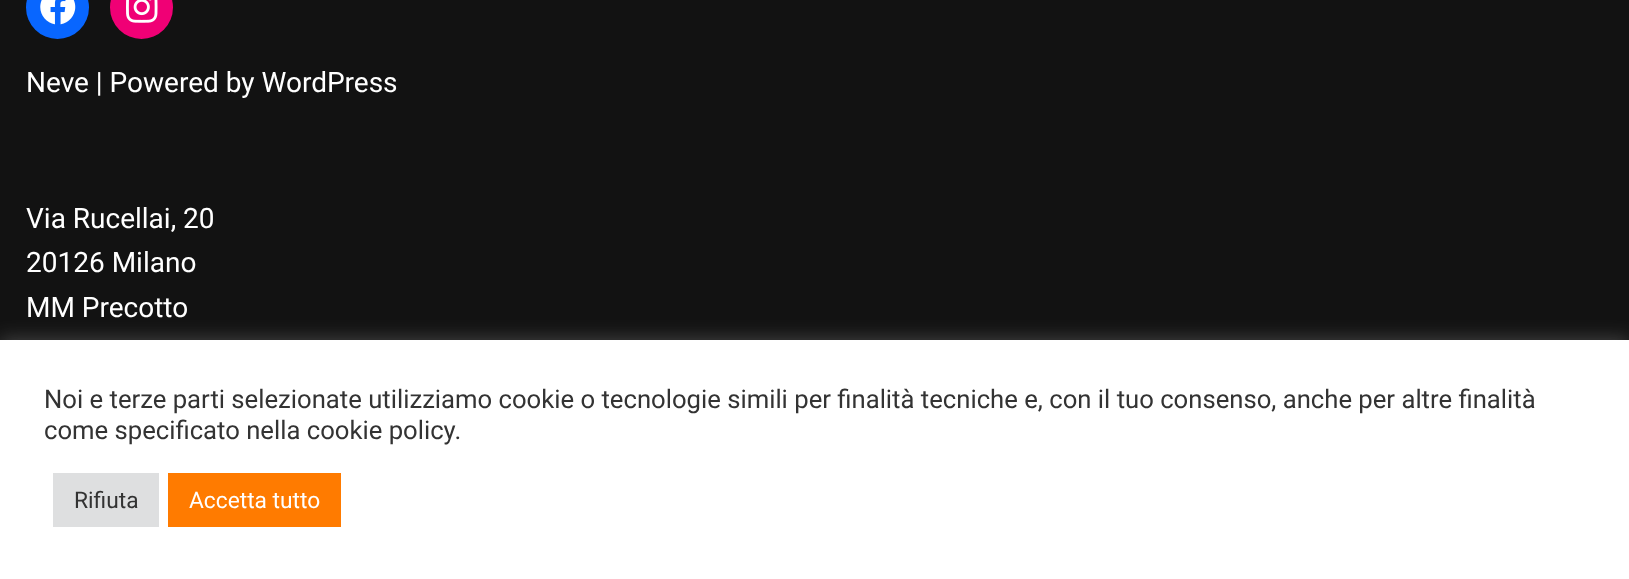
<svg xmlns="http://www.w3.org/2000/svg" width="1629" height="579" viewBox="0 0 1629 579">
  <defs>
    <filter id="blur1" x="-50%" y="-200%" width="200%" height="500%"><feGaussianBlur stdDeviation="9"/></filter>
  </defs>
  <rect width="100%" height="100%" fill="#121212"/>
  <circle cx="57.5" cy="7.5" r="31.5" fill="#0866ff"/>
  <image x="40" y="0" width="36" height="25" href="img1.png"/>
  <circle cx="141.5" cy="7.5" r="31.5" fill="#f00075"/>
  <image x="126" y="0" width="32" height="23" href="img2.png"/>
  <text x="26" y="92" font-family="Roboto" font-size="28" fill="#ffffff">Neve | Powered by WordPress</text>
  <text x="26" y="228" font-family="Roboto" font-size="28" fill="#ffffff">Via Rucellai, 20</text>
  <text x="26" y="272" font-family="Roboto" font-size="28" fill="#ffffff">20126 Milano</text>
  <text x="26" y="317" font-family="Roboto" font-size="28" fill="#ffffff">MM Precotto</text>
  <rect x="0" y="338" width="1629" height="240" fill="#acabab" fill-opacity="0.3" filter="url(#blur1)"/>
  <rect x="0" y="340" width="1629" height="239" fill="#ffffff"/>
  <text x="44" y="408" font-family="Roboto" font-size="25.67" fill="#333333">Noi e terze parti selezionate utilizziamo cookie o tecnologie simili per finalità tecniche e, con il tuo consenso, anche per altre finalità</text>
  <text x="44" y="439" font-family="Roboto" font-size="25.67" fill="#333333">come specificato nella cookie policy.</text>
  <rect x="53" y="473" width="106" height="54" fill="#dedfe0"/>
  <text x="74" y="508" font-family="Roboto" font-size="22.75" fill="#333333">Rifiuta</text>
  <rect x="168" y="473" width="173" height="54" fill="#ff7b00"/>
  <text x="189" y="508" font-family="Roboto" font-size="22.75" fill="#ffffff">Accetta tutto</text>
</svg>
